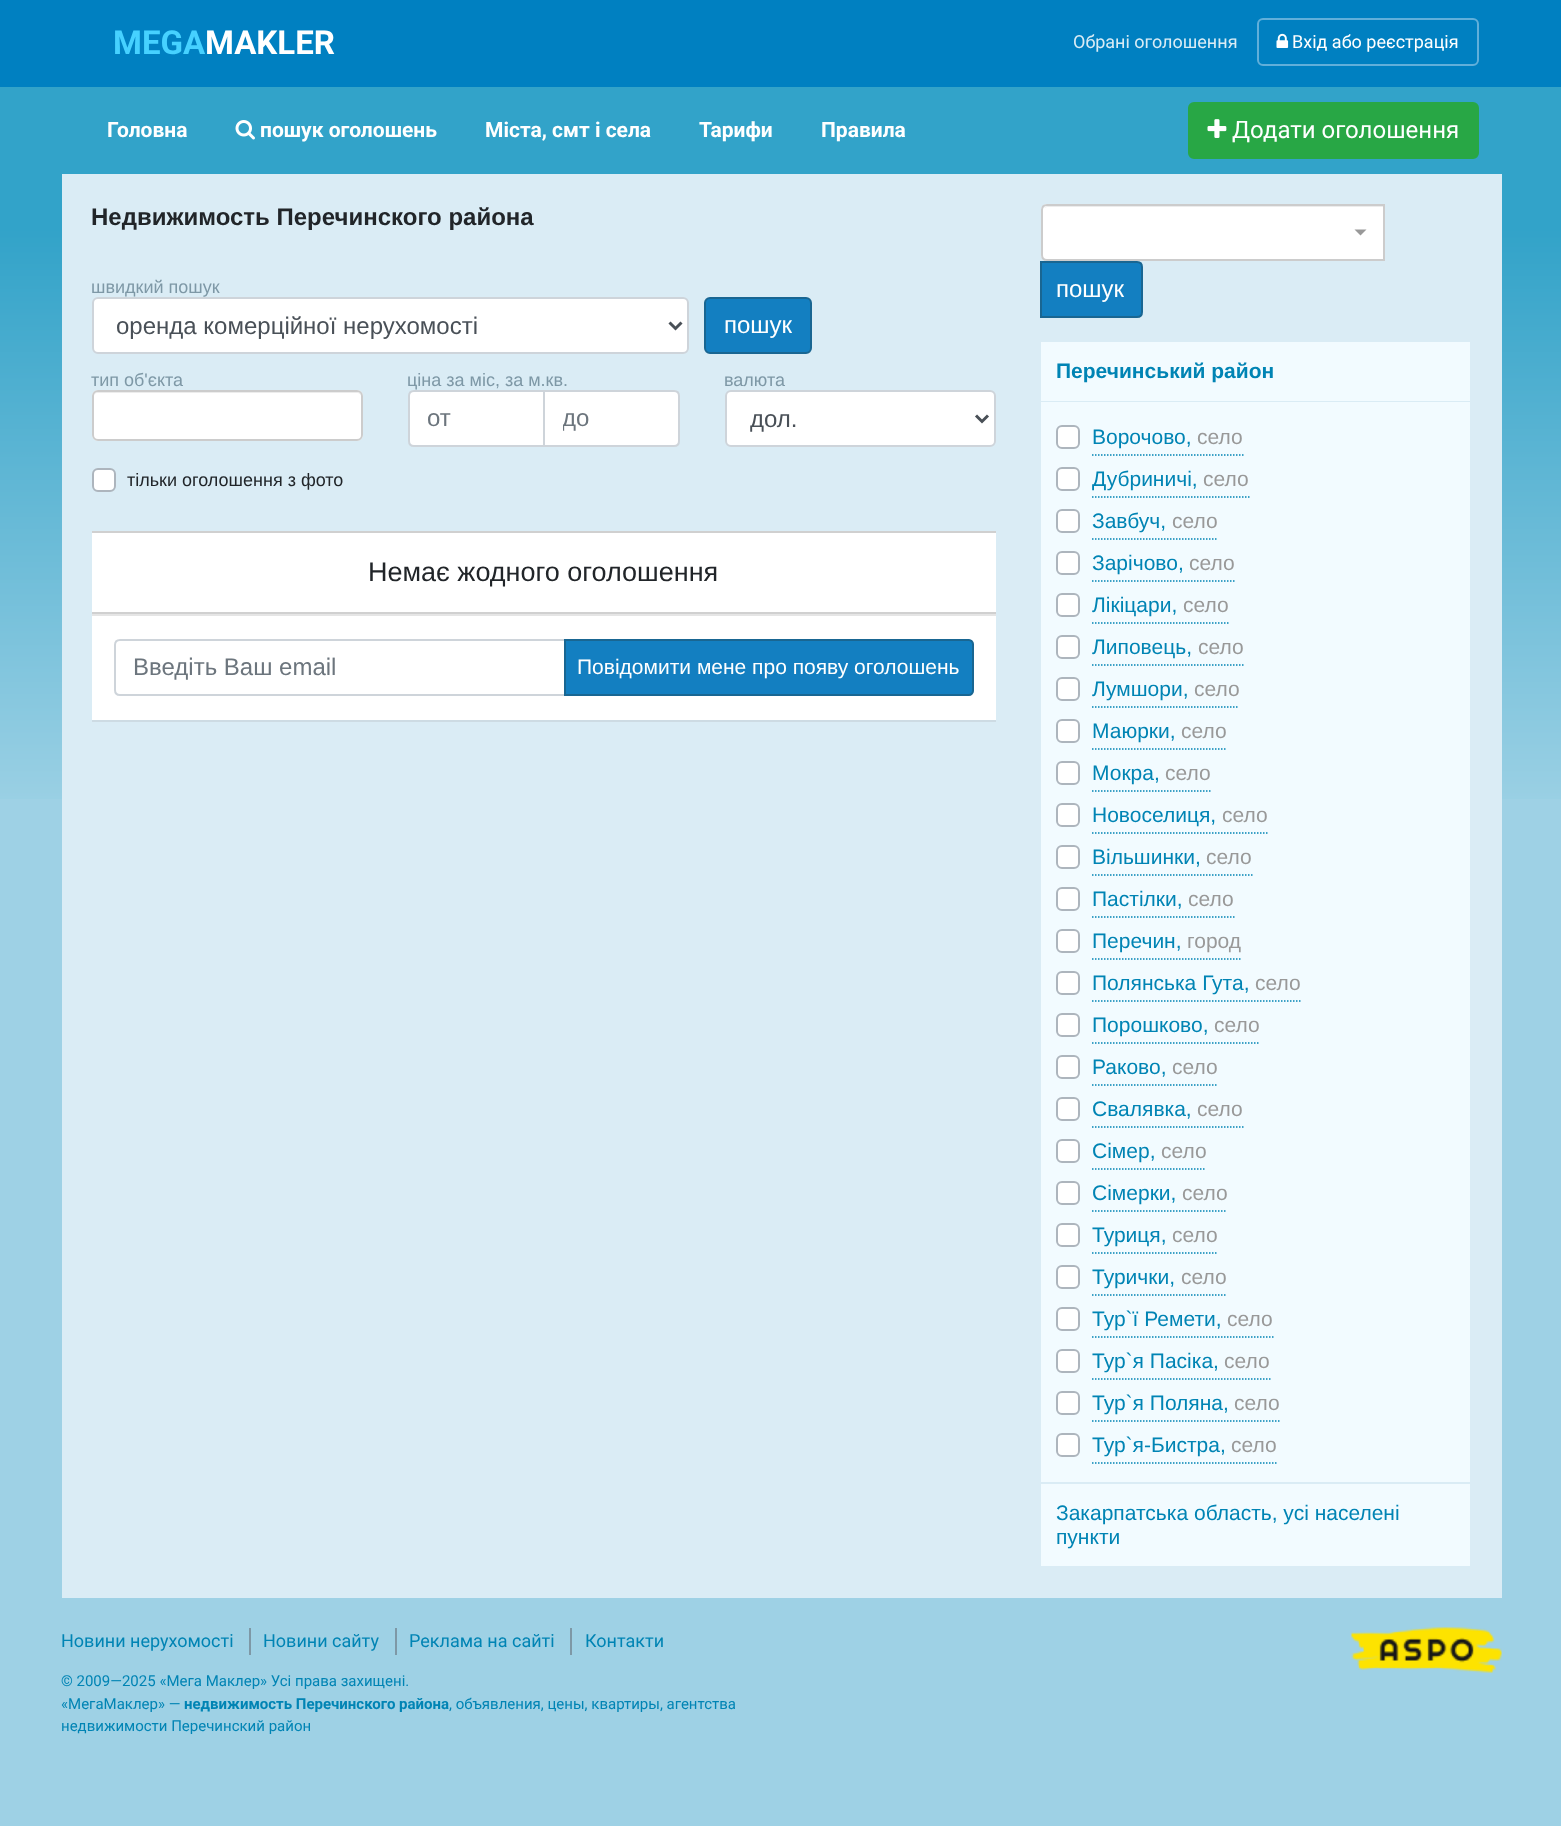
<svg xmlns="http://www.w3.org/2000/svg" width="1561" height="1826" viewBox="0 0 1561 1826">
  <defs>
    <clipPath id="clip1"><rect x="563" y="405" width="97" height="27"/></clipPath>
    <clipPath id="clip2"><rect x="750" y="405" width="203" height="29"/></clipPath>
  </defs>
  <rect width="100%" height="100%" fill="#9ed1e5"/>
  <image x="0" y="87" width="1561" height="712" href="img1.png"/>
  <rect x="0" y="0" width="1561" height="87" fill="#0080c1"/>
  <text x="113" y="54" font-family="Roboto" font-size="33" font-weight="bold" fill="#46d1ff">MEGA</text>
  <text x="205" y="54" font-family="Roboto" font-size="33" font-weight="bold" fill="#ffffff">MAKLER</text>
  <text x="1073" y="48" font-family="Roboto" font-size="18" fill="#daecf5">Обрані оголошення</text>
  <rect x="1258" y="19" width="220" height="46" rx="5" fill="none" stroke="#61afda" stroke-width="2"/>
  <image x="1276" y="33" width="13" height="15" href="img2.png"/>
  <text x="1292" y="48" font-family="Roboto" font-size="18" fill="#ffffff">Вхід або реєстрація</text>
  <text x="107" y="137" font-family="Roboto" font-size="21" font-weight="bold" fill="#ffffff">Головна</text>
  <image x="235" y="120" width="20" height="20" href="img3.png"/>
  <text x="260" y="137" font-family="Roboto" font-size="21" font-weight="bold" fill="#ffffff">пошук оголошень</text>
  <text x="485" y="137" font-family="Roboto" font-size="21" font-weight="bold" fill="#ffffff">Міста, смт і села</text>
  <text x="699" y="137" font-family="Roboto" font-size="21" font-weight="bold" fill="#ffffff">Тарифи</text>
  <text x="821" y="137" font-family="Roboto" font-size="21" font-weight="bold" fill="#ffffff">Правила</text>
  <rect x="1189" y="103" width="289" height="55" rx="5" fill="#28a745" stroke="#28a745" stroke-width="2"/>
  <image x="1207" y="119" width="20" height="19" href="img4.png"/>
  <text x="1232" y="138" font-family="Roboto" font-size="24" fill="#ffffff">Додати оголошення</text>
  <rect x="62" y="174" width="1440" height="1424" fill="#daecf5"/>
  <text x="91" y="225" font-family="Liberation Sans" font-size="24" font-weight="bold" fill="#212529">Недвижимость Перечинского района</text>
  <text x="91" y="293" font-family="Liberation Sans" font-size="18" fill="#7e98a6">швидкий пошук</text>
  <rect x="93" y="298" width="595" height="55" rx="5" fill="#ffffff" stroke="#ced4da" stroke-width="2"/>
  <path d="M669.5 322.5L675.5 328.5L681.5 322.5" fill="none" stroke="#495057" stroke-width="3"/>
  <text x="116" y="334" font-family="Liberation Sans" font-size="24" fill="#495057">оренда комерційної нерухомості</text>
  <rect x="705" y="298" width="106" height="55" rx="5" fill="#137fc1" stroke="#196692" stroke-width="2"/>
  <text x="724" y="333" font-family="Liberation Sans" font-size="24" fill="#ffffff">пошук</text>
  <text x="91" y="386" font-family="Liberation Sans" font-size="18" fill="#7e98a6">тип об'єкта</text>
  <rect x="92" y="390" width="271" height="51" rx="6" fill="#ffffff"/>
  <path d="M98 393H357C359 393 362 395 362 398C362 395 360 392 357 392H98C95 392 93 395 93 398C93 395 95 393 98 393Z" fill="#ececec"/>
  <rect x="93" y="391" width="269" height="49" rx="5" fill="none" stroke="#cccccc" stroke-width="2"/>
  <text x="407" y="386" font-family="Liberation Sans" font-size="18" fill="#7e98a6">ціна за міс, за м.кв.</text>
  <path d="M414 391H544V446H414C411 446 409 444 409 441V396C409 393 411 391 414 391Z" fill="#ffffff" stroke="#ced4da" stroke-width="2"/>
  <text x="427" y="426" font-family="Liberation Sans" font-size="24" fill="#6c757d">от</text>
  <path d="M544 391H674C677 391 679 393 679 396V441C679 444 677 446 674 446H544Z" fill="#ffffff" stroke="#ced4da" stroke-width="2"/>
  <g clip-path="url(#clip1)">
    <text x="562" y="426" font-family="Liberation Sans" font-size="24" fill="#6c757d">до</text>
  </g>
  <text x="724" y="386" font-family="Liberation Sans" font-size="18" fill="#7e98a6">валюта</text>
  <rect x="726" y="391" width="269" height="55" rx="5" fill="#ffffff" stroke="#ced4da" stroke-width="2"/>
  <path d="M976 415.5L982 421.5L988 415.5" fill="none" stroke="#495057" stroke-width="3"/>
  <g clip-path="url(#clip2)">
    <text x="750" y="427" font-family="Liberation Sans" font-size="24" fill="#495057">дол.</text>
  </g>
  <rect x="93" y="469" width="22" height="22" rx="5" fill="#ffffff" stroke="#adb5bd" stroke-width="2"/>
  <text x="127" y="486" font-family="Liberation Sans" font-size="18" fill="#212529">тільки оголошення з фото</text>
  <rect x="92" y="533" width="904" height="187" fill="#ffffff"/>
  <rect x="92" y="720" width="904" height="2" fill="#cddbe3"/>
  <rect x="92" y="531" width="904" height="2" fill="#d0d0d0"/>
  <text x="368" y="581" font-family="Liberation Sans" font-size="27" fill="#212529">Немає жодного оголошення</text>
  <rect x="92" y="612" width="904" height="2" fill="#d0d0d0"/>
  <rect x="92" y="614" width="904" height="2" fill="#e5e5e5"/>
  <path d="M120 640H565V695H120C117 695 115 693 115 690V645C115 642 117 640 120 640Z" fill="none" stroke="#ced4da" stroke-width="2"/>
  <text x="133" y="675" font-family="Liberation Sans" font-size="24" fill="#6c757d">Введіть Ваш email</text>
  <path d="M565 640H969C971 640 973 642 973 644V691C973 693 971 695 969 695H565Z" fill="#137fc1" stroke="#196692" stroke-width="2"/>
  <text x="577" y="674" font-family="Liberation Sans" font-size="21" fill="#ffffff">Повідомити мене про появу оголошень</text>
  <path d="M1047 204H1385V261H1047C1043.5 261 1041 258.5 1041 255V210C1041 206.5 1043.5 204 1047 204Z" fill="#ffffff"/>
  <path d="M1047 207H1383V206H1048C1046 206 1045 207 1044 208Z" fill="#ececec"/>
  <path d="M1047 205H1384V260H1047C1044 260 1042 258 1042 255V210C1042 207 1044 205 1047 205Z" fill="none" stroke="#cccccc" stroke-width="2"/>
  <path d="M1354.5 229.5H1366.5L1360.5 235.5Z" fill="#999999"/>
  <path d="M1041 262H1137C1140 262 1142 264 1142 267V312C1142 315 1140 317 1137 317H1041Z" fill="#137fc1" stroke="#196692" stroke-width="2"/>
  <text x="1056" y="297" font-family="Liberation Sans" font-size="24" fill="#ffffff">пошук</text>
  <rect x="1041" y="342" width="429" height="59" fill="#f2fbff"/>
  <text x="1056" y="378" font-family="Liberation Sans" font-size="21" font-weight="bold" fill="#0084b4">Перечинський район</text>
  <rect x="1041" y="402" width="429" height="1080" fill="#f2fbff"/>
  <path d="M1092 455H1243.5" fill="none" stroke="#0084b4" stroke-width="1.5" stroke-dasharray="1.5 1.5"/>
  <rect x="1057" y="426" width="22" height="22" rx="5" fill="#ffffff" stroke="#adb5bd" stroke-width="2"/>
  <text x="1092" y="444" font-family="Liberation Sans" font-size="21" fill="#0084b4">Ворочово,</text>
  <text x="1197" y="444" font-family="Liberation Sans" font-size="21" fill="#999999">село</text>
  <path d="M1092 497H1249.5" fill="none" stroke="#0084b4" stroke-width="1.5" stroke-dasharray="1.5 1.5"/>
  <rect x="1057" y="468" width="22" height="22" rx="5" fill="#ffffff" stroke="#adb5bd" stroke-width="2"/>
  <text x="1092" y="486" font-family="Liberation Sans" font-size="21" fill="#0084b4">Дубриничі,</text>
  <text x="1203" y="486" font-family="Liberation Sans" font-size="21" fill="#999999">село</text>
  <path d="M1092 539H1218" fill="none" stroke="#0084b4" stroke-width="1.5" stroke-dasharray="1.5 1.5"/>
  <rect x="1057" y="510" width="22" height="22" rx="5" fill="#ffffff" stroke="#adb5bd" stroke-width="2"/>
  <text x="1092" y="528" font-family="Liberation Sans" font-size="21" fill="#0084b4">Завбуч,</text>
  <text x="1172" y="528" font-family="Liberation Sans" font-size="21" fill="#999999">село</text>
  <path d="M1092 581H1234.5" fill="none" stroke="#0084b4" stroke-width="1.5" stroke-dasharray="1.5 1.5"/>
  <rect x="1057" y="552" width="22" height="22" rx="5" fill="#ffffff" stroke="#adb5bd" stroke-width="2"/>
  <text x="1092" y="570" font-family="Liberation Sans" font-size="21" fill="#0084b4">Зарічово,</text>
  <text x="1189" y="570" font-family="Liberation Sans" font-size="21" fill="#999999">село</text>
  <path d="M1092 623H1228.5" fill="none" stroke="#0084b4" stroke-width="1.5" stroke-dasharray="1.5 1.5"/>
  <rect x="1057" y="594" width="22" height="22" rx="5" fill="#ffffff" stroke="#adb5bd" stroke-width="2"/>
  <text x="1092" y="612" font-family="Liberation Sans" font-size="21" fill="#0084b4">Лікіцари,</text>
  <text x="1183" y="612" font-family="Liberation Sans" font-size="21" fill="#999999">село</text>
  <path d="M1092 665H1243.5" fill="none" stroke="#0084b4" stroke-width="1.5" stroke-dasharray="1.5 1.5"/>
  <rect x="1057" y="636" width="22" height="22" rx="5" fill="#ffffff" stroke="#adb5bd" stroke-width="2"/>
  <text x="1092" y="654" font-family="Liberation Sans" font-size="21" fill="#0084b4">Липовець,</text>
  <text x="1198" y="654" font-family="Liberation Sans" font-size="21" fill="#999999">село</text>
  <path d="M1092 707H1239" fill="none" stroke="#0084b4" stroke-width="1.5" stroke-dasharray="1.5 1.5"/>
  <rect x="1057" y="678" width="22" height="22" rx="5" fill="#ffffff" stroke="#adb5bd" stroke-width="2"/>
  <text x="1092" y="696" font-family="Liberation Sans" font-size="21" fill="#0084b4">Лумшори,</text>
  <text x="1194" y="696" font-family="Liberation Sans" font-size="21" fill="#999999">село</text>
  <path d="M1092 749H1227" fill="none" stroke="#0084b4" stroke-width="1.5" stroke-dasharray="1.5 1.5"/>
  <rect x="1057" y="720" width="22" height="22" rx="5" fill="#ffffff" stroke="#adb5bd" stroke-width="2"/>
  <text x="1092" y="738" font-family="Liberation Sans" font-size="21" fill="#0084b4">Маюрки,</text>
  <text x="1181" y="738" font-family="Liberation Sans" font-size="21" fill="#999999">село</text>
  <path d="M1092 791H1210.5" fill="none" stroke="#0084b4" stroke-width="1.5" stroke-dasharray="1.5 1.5"/>
  <rect x="1057" y="762" width="22" height="22" rx="5" fill="#ffffff" stroke="#adb5bd" stroke-width="2"/>
  <text x="1092" y="780" font-family="Liberation Sans" font-size="21" fill="#0084b4">Мокра,</text>
  <text x="1165" y="780" font-family="Liberation Sans" font-size="21" fill="#999999">село</text>
  <path d="M1092 833H1267.5" fill="none" stroke="#0084b4" stroke-width="1.5" stroke-dasharray="1.5 1.5"/>
  <rect x="1057" y="804" width="22" height="22" rx="5" fill="#ffffff" stroke="#adb5bd" stroke-width="2"/>
  <text x="1092" y="822" font-family="Liberation Sans" font-size="21" fill="#0084b4">Новоселиця,</text>
  <text x="1222" y="822" font-family="Liberation Sans" font-size="21" fill="#999999">село</text>
  <path d="M1092 875H1252.5" fill="none" stroke="#0084b4" stroke-width="1.5" stroke-dasharray="1.5 1.5"/>
  <rect x="1057" y="846" width="22" height="22" rx="5" fill="#ffffff" stroke="#adb5bd" stroke-width="2"/>
  <text x="1092" y="864" font-family="Liberation Sans" font-size="21" fill="#0084b4">Вільшинки,</text>
  <text x="1206" y="864" font-family="Liberation Sans" font-size="21" fill="#999999">село</text>
  <path d="M1092 917H1234.5" fill="none" stroke="#0084b4" stroke-width="1.5" stroke-dasharray="1.5 1.5"/>
  <rect x="1057" y="888" width="22" height="22" rx="5" fill="#ffffff" stroke="#adb5bd" stroke-width="2"/>
  <text x="1092" y="906" font-family="Liberation Sans" font-size="21" fill="#0084b4">Пастілки,</text>
  <text x="1188" y="906" font-family="Liberation Sans" font-size="21" fill="#999999">село</text>
  <path d="M1092 959H1240.5" fill="none" stroke="#0084b4" stroke-width="1.5" stroke-dasharray="1.5 1.5"/>
  <rect x="1057" y="930" width="22" height="22" rx="5" fill="#ffffff" stroke="#adb5bd" stroke-width="2"/>
  <text x="1092" y="948" font-family="Liberation Sans" font-size="21" fill="#0084b4">Перечин,</text>
  <text x="1187" y="948" font-family="Liberation Sans" font-size="21" fill="#999999">город</text>
  <path d="M1092 1001H1300.5" fill="none" stroke="#0084b4" stroke-width="1.5" stroke-dasharray="1.5 1.5"/>
  <rect x="1057" y="972" width="22" height="22" rx="5" fill="#ffffff" stroke="#adb5bd" stroke-width="2"/>
  <text x="1092" y="990" font-family="Liberation Sans" font-size="21" fill="#0084b4">Полянська Гута,</text>
  <text x="1255" y="990" font-family="Liberation Sans" font-size="21" fill="#999999">село</text>
  <path d="M1092 1043H1260" fill="none" stroke="#0084b4" stroke-width="1.5" stroke-dasharray="1.5 1.5"/>
  <rect x="1057" y="1014" width="22" height="22" rx="5" fill="#ffffff" stroke="#adb5bd" stroke-width="2"/>
  <text x="1092" y="1032" font-family="Liberation Sans" font-size="21" fill="#0084b4">Порошково,</text>
  <text x="1214" y="1032" font-family="Liberation Sans" font-size="21" fill="#999999">село</text>
  <path d="M1092 1085H1218" fill="none" stroke="#0084b4" stroke-width="1.5" stroke-dasharray="1.5 1.5"/>
  <rect x="1057" y="1056" width="22" height="22" rx="5" fill="#ffffff" stroke="#adb5bd" stroke-width="2"/>
  <text x="1092" y="1074" font-family="Liberation Sans" font-size="21" fill="#0084b4">Раково,</text>
  <text x="1172" y="1074" font-family="Liberation Sans" font-size="21" fill="#999999">село</text>
  <path d="M1092 1127H1243.5" fill="none" stroke="#0084b4" stroke-width="1.5" stroke-dasharray="1.5 1.5"/>
  <rect x="1057" y="1098" width="22" height="22" rx="5" fill="#ffffff" stroke="#adb5bd" stroke-width="2"/>
  <text x="1092" y="1116" font-family="Liberation Sans" font-size="21" fill="#0084b4">Свалявка,</text>
  <text x="1197" y="1116" font-family="Liberation Sans" font-size="21" fill="#999999">село</text>
  <path d="M1092 1169H1206" fill="none" stroke="#0084b4" stroke-width="1.5" stroke-dasharray="1.5 1.5"/>
  <rect x="1057" y="1140" width="22" height="22" rx="5" fill="#ffffff" stroke="#adb5bd" stroke-width="2"/>
  <text x="1092" y="1158" font-family="Liberation Sans" font-size="21" fill="#0084b4">Сімер,</text>
  <text x="1161" y="1158" font-family="Liberation Sans" font-size="21" fill="#999999">село</text>
  <path d="M1092 1211H1227" fill="none" stroke="#0084b4" stroke-width="1.5" stroke-dasharray="1.5 1.5"/>
  <rect x="1057" y="1182" width="22" height="22" rx="5" fill="#ffffff" stroke="#adb5bd" stroke-width="2"/>
  <text x="1092" y="1200" font-family="Liberation Sans" font-size="21" fill="#0084b4">Сімерки,</text>
  <text x="1182" y="1200" font-family="Liberation Sans" font-size="21" fill="#999999">село</text>
  <path d="M1092 1253H1218" fill="none" stroke="#0084b4" stroke-width="1.5" stroke-dasharray="1.5 1.5"/>
  <rect x="1057" y="1224" width="22" height="22" rx="5" fill="#ffffff" stroke="#adb5bd" stroke-width="2"/>
  <text x="1092" y="1242" font-family="Liberation Sans" font-size="21" fill="#0084b4">Туриця,</text>
  <text x="1172" y="1242" font-family="Liberation Sans" font-size="21" fill="#999999">село</text>
  <path d="M1092 1295H1227" fill="none" stroke="#0084b4" stroke-width="1.5" stroke-dasharray="1.5 1.5"/>
  <rect x="1057" y="1266" width="22" height="22" rx="5" fill="#ffffff" stroke="#adb5bd" stroke-width="2"/>
  <text x="1092" y="1284" font-family="Liberation Sans" font-size="21" fill="#0084b4">Турички,</text>
  <text x="1181" y="1284" font-family="Liberation Sans" font-size="21" fill="#999999">село</text>
  <path d="M1092 1337H1273.5" fill="none" stroke="#0084b4" stroke-width="1.5" stroke-dasharray="1.5 1.5"/>
  <rect x="1057" y="1308" width="22" height="22" rx="5" fill="#ffffff" stroke="#adb5bd" stroke-width="2"/>
  <text x="1092" y="1326" font-family="Liberation Sans" font-size="21" fill="#0084b4">Тур`ї Ремети,</text>
  <text x="1227" y="1326" font-family="Liberation Sans" font-size="21" fill="#999999">село</text>
  <path d="M1092 1379H1270.5" fill="none" stroke="#0084b4" stroke-width="1.5" stroke-dasharray="1.5 1.5"/>
  <rect x="1057" y="1350" width="22" height="22" rx="5" fill="#ffffff" stroke="#adb5bd" stroke-width="2"/>
  <text x="1092" y="1368" font-family="Liberation Sans" font-size="21" fill="#0084b4">Тур`я Пасіка,</text>
  <text x="1224" y="1368" font-family="Liberation Sans" font-size="21" fill="#999999">село</text>
  <path d="M1092 1421H1279.5" fill="none" stroke="#0084b4" stroke-width="1.5" stroke-dasharray="1.5 1.5"/>
  <rect x="1057" y="1392" width="22" height="22" rx="5" fill="#ffffff" stroke="#adb5bd" stroke-width="2"/>
  <text x="1092" y="1410" font-family="Liberation Sans" font-size="21" fill="#0084b4">Тур`я Поляна,</text>
  <text x="1234" y="1410" font-family="Liberation Sans" font-size="21" fill="#999999">село</text>
  <path d="M1092 1463H1276.5" fill="none" stroke="#0084b4" stroke-width="1.5" stroke-dasharray="1.5 1.5"/>
  <rect x="1057" y="1434" width="22" height="22" rx="5" fill="#ffffff" stroke="#adb5bd" stroke-width="2"/>
  <text x="1092" y="1452" font-family="Liberation Sans" font-size="21" fill="#0084b4">Тур`я-Бистра,</text>
  <text x="1231" y="1452" font-family="Liberation Sans" font-size="21" fill="#999999">село</text>
  <rect x="1041" y="1484" width="429" height="82" fill="#f2fbff"/>
  <text x="1056" y="1520" font-family="Liberation Sans" font-size="21" fill="#0084b4">Закарпатська область, усі населені</text>
  <text x="1056" y="1544" font-family="Liberation Sans" font-size="21" fill="#0084b4">пункти</text>
  <rect x="249" y="1628" width="2" height="27" fill="#7e98a6"/>
  <text x="61" y="1647" font-family="Roboto" font-size="18" fill="#0084b4">Новини нерухомості</text>
  <rect x="395" y="1628" width="2" height="27" fill="#7e98a6"/>
  <text x="263" y="1647" font-family="Roboto" font-size="18" fill="#0084b4">Новини сайту</text>
  <rect x="570" y="1628" width="2" height="27" fill="#7e98a6"/>
  <text x="409" y="1647" font-family="Roboto" font-size="18" fill="#0084b4">Реклама на сайті</text>
  <text x="585" y="1647" font-family="Roboto" font-size="18" fill="#0084b4">Контакти</text>
  <text x="61" y="1686" font-family="Roboto" font-size="15" fill="#0084b4">© 2009—2025 «Мега Маклер» Усі права захищені.</text>
  <text x="61" y="1709" font-family="Roboto" font-size="15" fill="#0084b4">«МегаМаклер» —</text>
  <text x="184" y="1709" font-family="Roboto" font-size="15" font-weight="bold" fill="#0084b4">недвижимость Перечинского района</text>
  <text x="449" y="1709" font-family="Roboto" font-size="15" fill="#0084b4">, объявления, цены, квартиры, агентства</text>
  <text x="61" y="1731" font-family="Roboto" font-size="15" fill="#0084b4">недвижимости Перечинский район</text>
  <image x="1351" y="1627" width="151" height="46" href="img5.png"/>
</svg>
